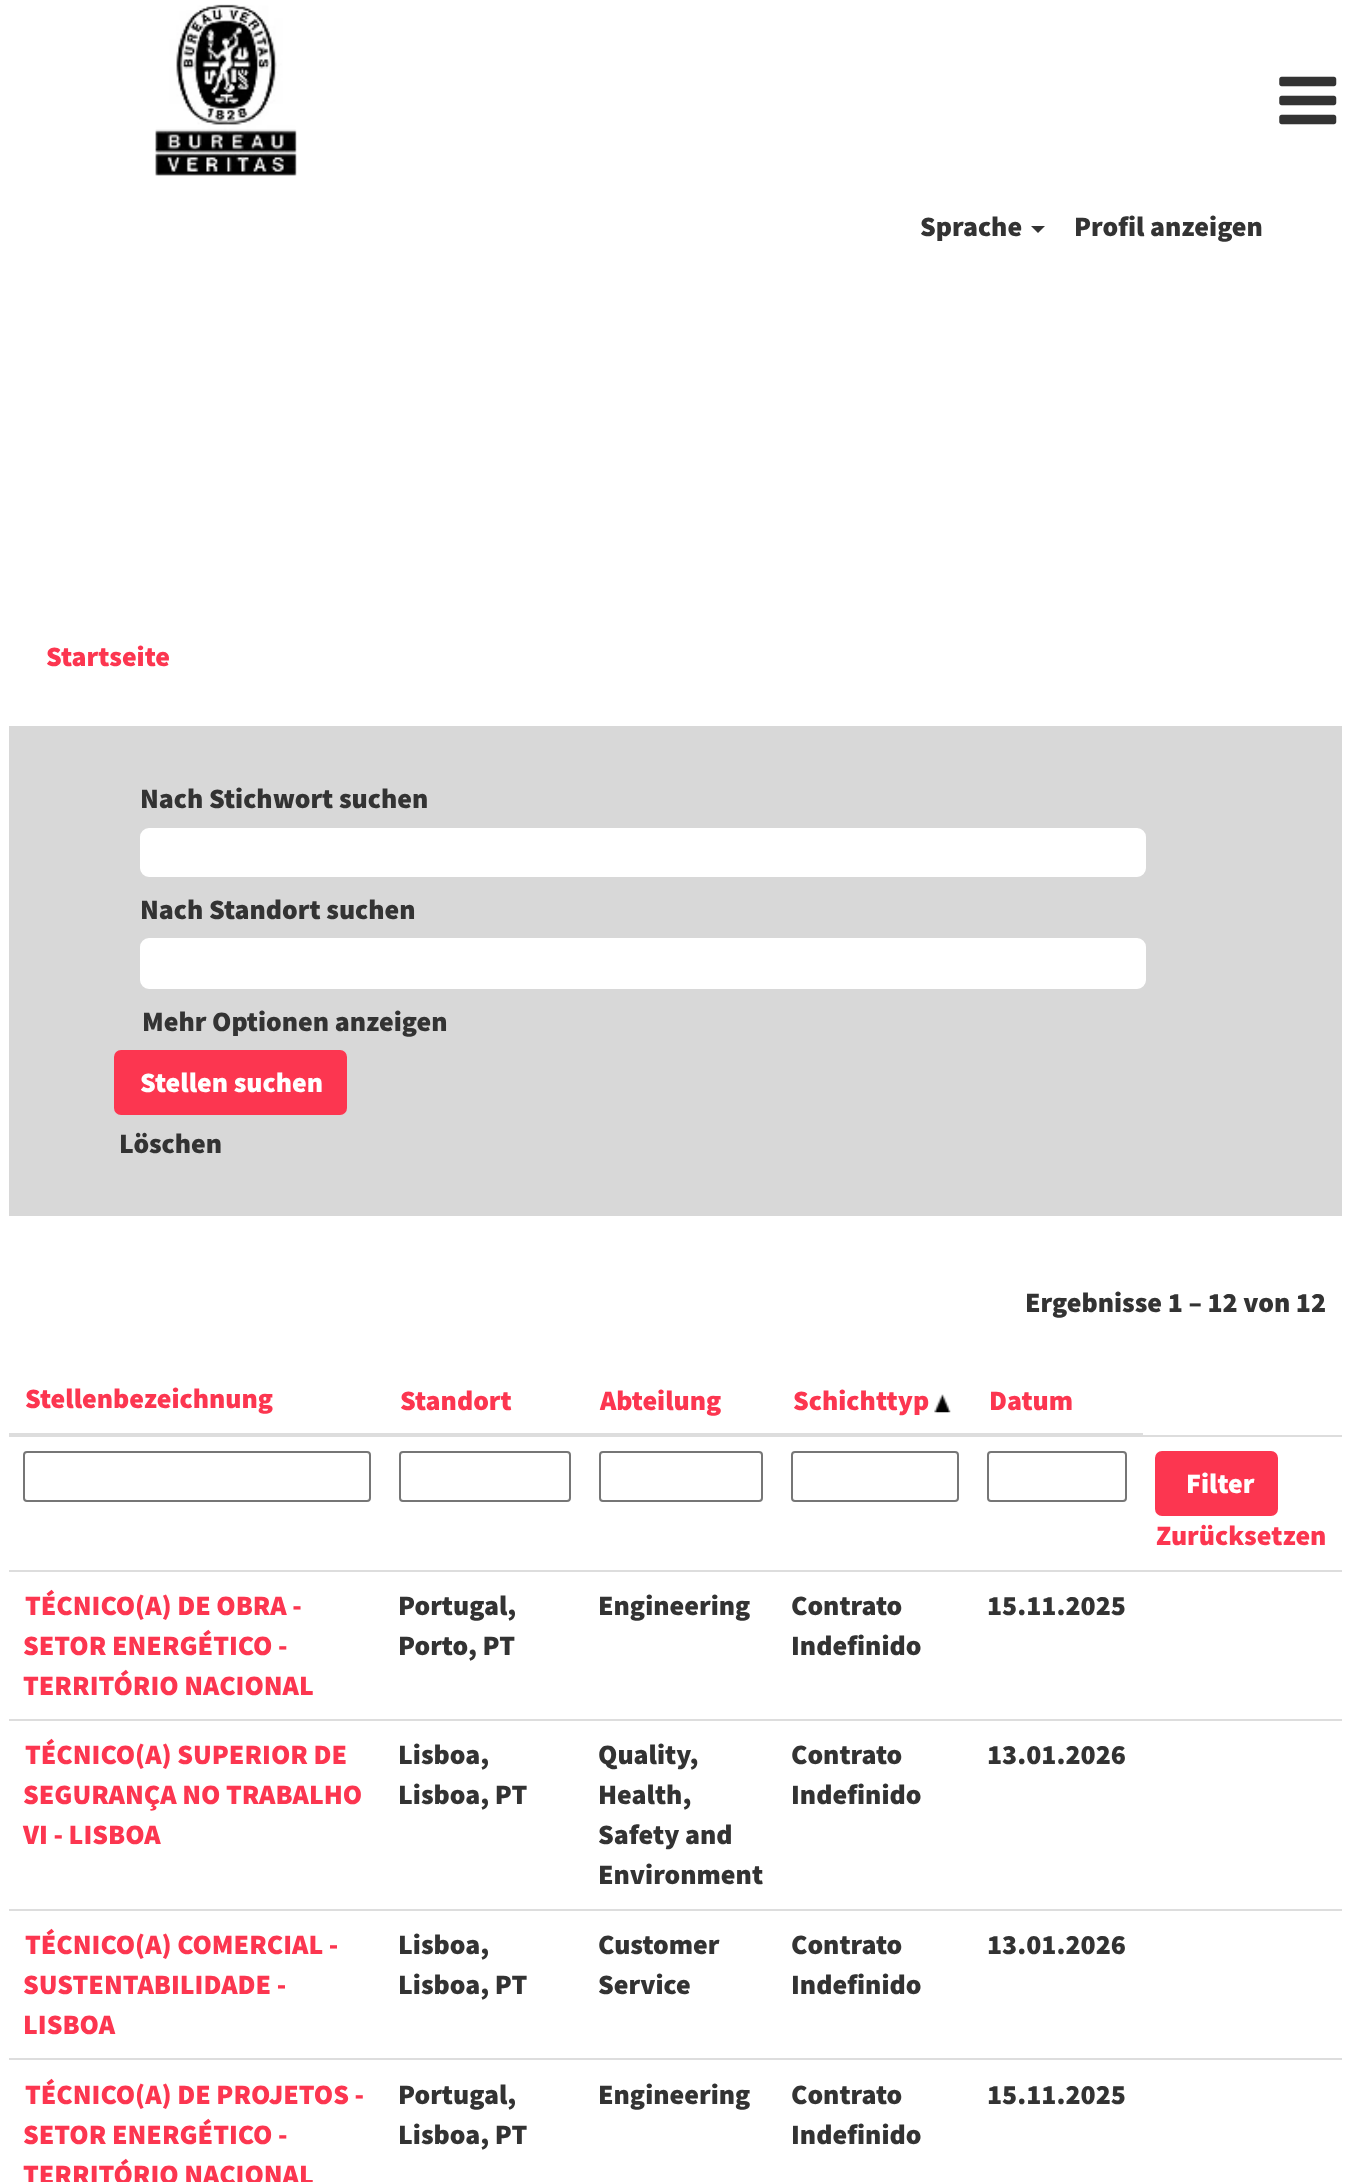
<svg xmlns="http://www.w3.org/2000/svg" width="1350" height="2182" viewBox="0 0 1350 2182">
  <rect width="100%" height="100%" fill="#ffffff"/>
  <image x="155" y="4" width="142" height="172" href="img1.png"/>
  <image x="1279" y="76" width="58" height="49" href="img2.png"/>
  <text x="920" y="236" font-family="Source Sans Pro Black" font-size="28" font-weight="900" fill="#333333">Sprache</text>
  <path d="M1031 226H1045L1038 233Z" fill="#333333"/>
  <text x="1074" y="236" font-family="Source Sans Pro Black" font-size="28" font-weight="900" fill="#333333">Profil anzeigen</text>
  <text x="46" y="666" font-family="Source Sans Pro Black" font-size="28" font-weight="900" fill="#fc3650">Startseite</text>
  <rect x="9" y="726" width="1333" height="490" fill="#d8d8d8"/>
  <text x="140" y="808" font-family="Source Sans Pro Black" font-size="28" font-weight="900" fill="#333333">Nach Stichwort suchen</text>
  <rect x="142" y="830" width="1002" height="45" rx="7" fill="#ffffff" stroke="#ffffff" stroke-width="4"/>
  <text x="140" y="919" font-family="Source Sans Pro Black" font-size="28" font-weight="900" fill="#333333">Nach Standort suchen</text>
  <rect x="142" y="940" width="1002" height="47" rx="7" fill="#ffffff" stroke="#ffffff" stroke-width="4"/>
  <text x="142" y="1031" font-family="Source Sans Pro Black" font-size="28" font-weight="900" fill="#333333">Mehr Optionen anzeigen</text>
  <rect x="115" y="1051" width="231" height="63" rx="6" fill="#fc3650" stroke="#fc3650" stroke-width="2"/>
  <text x="140" y="1092" font-family="Source Sans Pro Black" font-size="28" font-weight="900" fill="#ffffff">Stellen suchen</text>
  <text x="119" y="1153" font-family="Source Sans Pro Black" font-size="28" font-weight="900" fill="#333333">Löschen</text>
  <text x="1025" y="1312" font-family="Source Sans Pro Black" font-size="28" font-weight="900" fill="#333333">Ergebnisse 1 – 12 von 12</text>
  <text x="25" y="1408" font-family="Source Sans Pro Black" font-size="28" font-weight="900" fill="#fc3650">Stellenbezeichnung</text>
  <text x="400" y="1410" font-family="Source Sans Pro Black" font-size="28" font-weight="900" fill="#fc3650">Standort</text>
  <text x="600" y="1410" font-family="Source Sans Pro Black" font-size="28" font-weight="900" fill="#fc3650">Abteilung</text>
  <text x="793" y="1410" font-family="Source Sans Pro Black" font-size="28" font-weight="900" fill="#fc3650">Schichttyp</text>
  <image x="934" y="1394" width="17" height="19" href="img3.png"/>
  <rect x="1139" y="1435" width="203" height="2" fill="#dddddd"/>
  <rect x="9" y="1433" width="1134" height="4" fill="#dddddd"/>
  <text x="989" y="1410" font-family="Source Sans Pro Black" font-size="28" font-weight="900" fill="#fc3650">Datum</text>
  <rect x="24" y="1452" width="346" height="49" rx="3" fill="none" stroke="#767676" stroke-width="2"/>
  <rect x="400" y="1452" width="170" height="49" rx="3" fill="none" stroke="#767676" stroke-width="2"/>
  <rect x="600" y="1452" width="162" height="49" rx="3" fill="none" stroke="#767676" stroke-width="2"/>
  <rect x="792" y="1452" width="166" height="49" rx="3" fill="none" stroke="#767676" stroke-width="2"/>
  <rect x="988" y="1452" width="138" height="49" rx="3" fill="none" stroke="#767676" stroke-width="2"/>
  <rect x="1156" y="1452" width="121" height="63" rx="6" fill="#fc3650" stroke="#fc3650" stroke-width="2"/>
  <text x="1186" y="1493" font-family="Source Sans Pro Black" font-size="28" font-weight="900" fill="#ffffff">Filter</text>
  <text x="1156" y="1545" font-family="Source Sans Pro Black" font-size="28" font-weight="900" fill="#fc3650">Zurücksetzen</text>
  <rect x="9" y="1570" width="1333" height="2" fill="#dddddd"/>
  <text x="25" y="1615" font-family="Source Sans Pro Black" font-size="28" font-weight="900" fill="#fc3650">TÉCNICO(A) DE OBRA -</text>
  <text x="23" y="1655" font-family="Source Sans Pro Black" font-size="28" font-weight="900" fill="#fc3650">SETOR ENERGÉTICO -</text>
  <text x="23" y="1695" font-family="Source Sans Pro Black" font-size="28" font-weight="900" fill="#fc3650">TERRITÓRIO NACIONAL</text>
  <text x="398" y="1615" font-family="Source Sans Pro Black" font-size="28" font-weight="900" fill="#333333">Portugal,</text>
  <text x="398" y="1655" font-family="Source Sans Pro Black" font-size="28" font-weight="900" fill="#333333">Porto, PT</text>
  <text x="598" y="1615" font-family="Source Sans Pro Black" font-size="28" font-weight="900" fill="#333333">Engineering</text>
  <text x="791" y="1615" font-family="Source Sans Pro Black" font-size="28" font-weight="900" fill="#333333">Contrato</text>
  <text x="791" y="1655" font-family="Source Sans Pro Black" font-size="28" font-weight="900" fill="#333333">Indefinido</text>
  <text x="987" y="1615" font-family="Source Sans Pro Black" font-size="28" font-weight="900" fill="#333333">15.11.2025</text>
  <rect x="9" y="1719" width="1333" height="2" fill="#dddddd"/>
  <text x="25" y="1764" font-family="Source Sans Pro Black" font-size="28" font-weight="900" fill="#fc3650">TÉCNICO(A) SUPERIOR DE</text>
  <text x="23" y="1804" font-family="Source Sans Pro Black" font-size="28" font-weight="900" fill="#fc3650">SEGURANÇA NO TRABALHO</text>
  <text x="23" y="1844" font-family="Source Sans Pro Black" font-size="28" font-weight="900" fill="#fc3650">VI - LISBOA</text>
  <text x="398" y="1764" font-family="Source Sans Pro Black" font-size="28" font-weight="900" fill="#333333">Lisboa,</text>
  <text x="398" y="1804" font-family="Source Sans Pro Black" font-size="28" font-weight="900" fill="#333333">Lisboa, PT</text>
  <text x="598" y="1764" font-family="Source Sans Pro Black" font-size="28" font-weight="900" fill="#333333">Quality,</text>
  <text x="598" y="1804" font-family="Source Sans Pro Black" font-size="28" font-weight="900" fill="#333333">Health,</text>
  <text x="598" y="1844" font-family="Source Sans Pro Black" font-size="28" font-weight="900" fill="#333333">Safety and</text>
  <text x="598" y="1884" font-family="Source Sans Pro Black" font-size="28" font-weight="900" fill="#333333">Environment</text>
  <text x="791" y="1764" font-family="Source Sans Pro Black" font-size="28" font-weight="900" fill="#333333">Contrato</text>
  <text x="791" y="1804" font-family="Source Sans Pro Black" font-size="28" font-weight="900" fill="#333333">Indefinido</text>
  <text x="987" y="1764" font-family="Source Sans Pro Black" font-size="28" font-weight="900" fill="#333333">13.01.2026</text>
  <rect x="9" y="1909" width="1333" height="2" fill="#dddddd"/>
  <text x="25" y="1954" font-family="Source Sans Pro Black" font-size="28" font-weight="900" fill="#fc3650">TÉCNICO(A) COMERCIAL -</text>
  <text x="23" y="1994" font-family="Source Sans Pro Black" font-size="28" font-weight="900" fill="#fc3650">SUSTENTABILIDADE -</text>
  <text x="23" y="2034" font-family="Source Sans Pro Black" font-size="28" font-weight="900" fill="#fc3650">LISBOA</text>
  <text x="398" y="1954" font-family="Source Sans Pro Black" font-size="28" font-weight="900" fill="#333333">Lisboa,</text>
  <text x="398" y="1994" font-family="Source Sans Pro Black" font-size="28" font-weight="900" fill="#333333">Lisboa, PT</text>
  <text x="598" y="1954" font-family="Source Sans Pro Black" font-size="28" font-weight="900" fill="#333333">Customer</text>
  <text x="598" y="1994" font-family="Source Sans Pro Black" font-size="28" font-weight="900" fill="#333333">Service</text>
  <text x="791" y="1954" font-family="Source Sans Pro Black" font-size="28" font-weight="900" fill="#333333">Contrato</text>
  <text x="791" y="1994" font-family="Source Sans Pro Black" font-size="28" font-weight="900" fill="#333333">Indefinido</text>
  <text x="987" y="1954" font-family="Source Sans Pro Black" font-size="28" font-weight="900" fill="#333333">13.01.2026</text>
  <rect x="9" y="2058" width="1333" height="2" fill="#dddddd"/>
  <text x="25" y="2104" font-family="Source Sans Pro Black" font-size="28" font-weight="900" fill="#fc3650">TÉCNICO(A) DE PROJETOS -</text>
  <text x="23" y="2144" font-family="Source Sans Pro Black" font-size="28" font-weight="900" fill="#fc3650">SETOR ENERGÉTICO -</text>
  <text x="23" y="2184" font-family="Source Sans Pro Black" font-size="28" font-weight="900" fill="#fc3650">TERRITÓRIO NACIONAL</text>
  <text x="398" y="2104" font-family="Source Sans Pro Black" font-size="28" font-weight="900" fill="#333333">Portugal,</text>
  <text x="398" y="2144" font-family="Source Sans Pro Black" font-size="28" font-weight="900" fill="#333333">Lisboa, PT</text>
  <text x="598" y="2104" font-family="Source Sans Pro Black" font-size="28" font-weight="900" fill="#333333">Engineering</text>
  <text x="791" y="2104" font-family="Source Sans Pro Black" font-size="28" font-weight="900" fill="#333333">Contrato</text>
  <text x="791" y="2144" font-family="Source Sans Pro Black" font-size="28" font-weight="900" fill="#333333">Indefinido</text>
  <text x="987" y="2104" font-family="Source Sans Pro Black" font-size="28" font-weight="900" fill="#333333">15.11.2025</text>
</svg>
